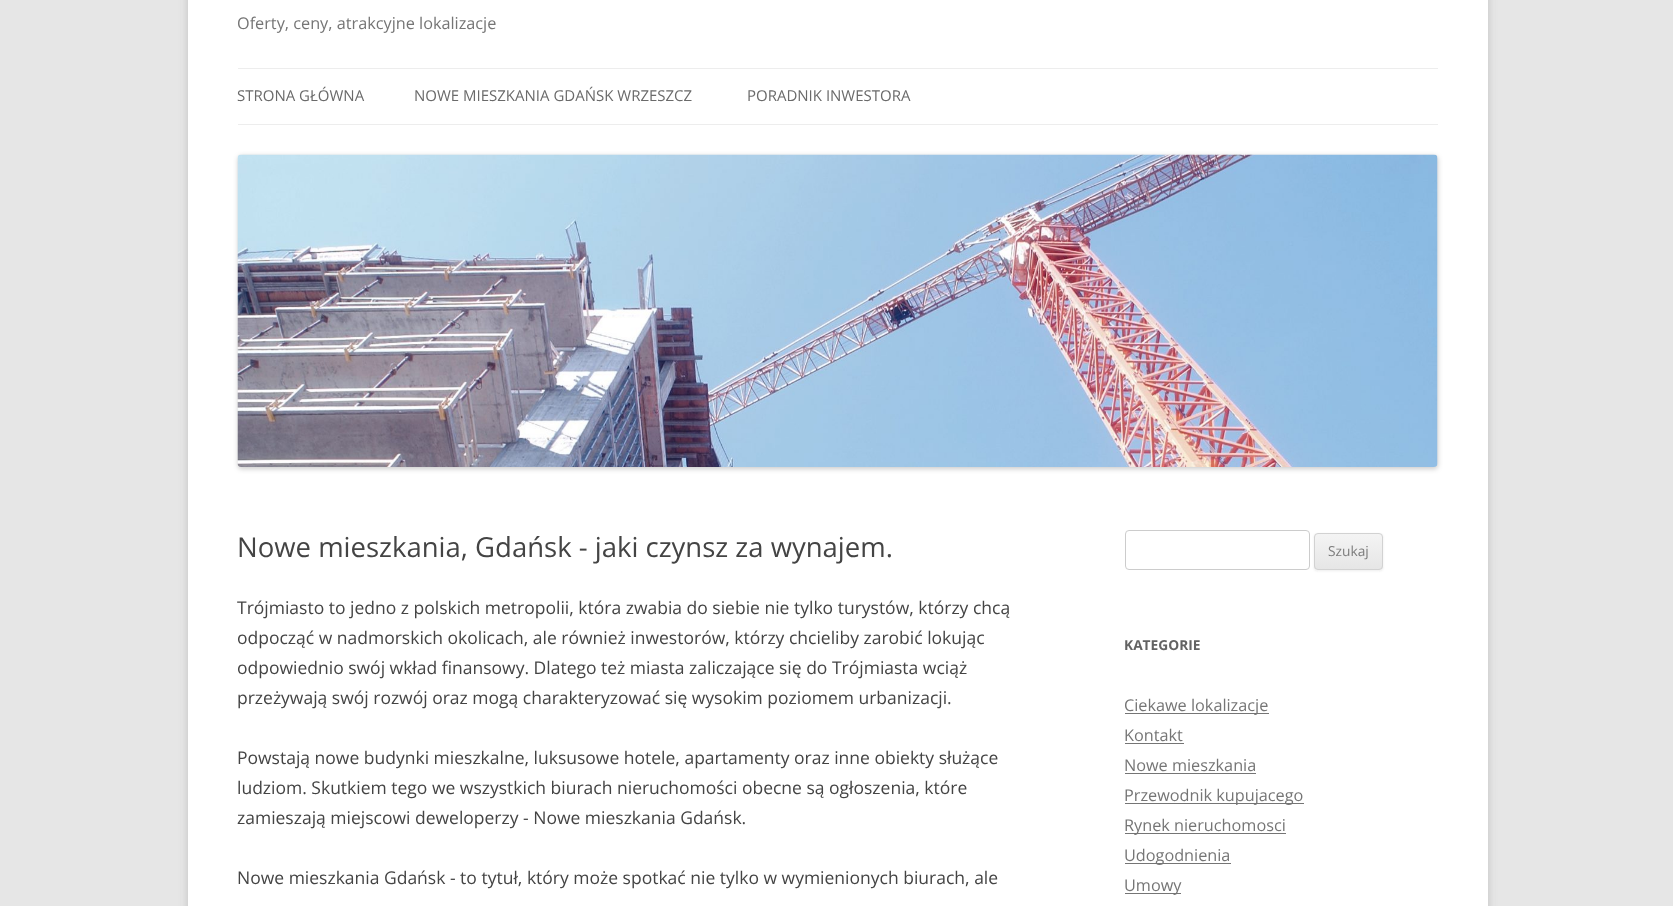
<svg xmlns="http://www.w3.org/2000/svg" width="1673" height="906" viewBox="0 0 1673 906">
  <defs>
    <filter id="blur1" x="-50%" y="-200%" width="200%" height="500%"><feGaussianBlur stdDeviation="4"/></filter>
    <filter id="blur2" x="-50%" y="-200%" width="200%" height="500%"><feGaussianBlur stdDeviation="2.5"/></filter>
    <filter id="blur3" x="-50%" y="-200%" width="200%" height="500%"><feGaussianBlur stdDeviation="1"/></filter>
    <clipPath id="clip1"><rect x="1314" y="533" width="69" height="37" rx="4"/></clipPath>
    <linearGradient id="g1" gradientUnits="userSpaceOnUse" x1="1348" y1="534" x2="1348" y2="569"><stop offset="0" stop-color="#f4f4f4"/><stop offset="1" stop-color="#e6e6e6"/></linearGradient>
  </defs>
  <rect width="100%" height="100%" fill="#e6e6e6"/>
  <rect x="188" y="-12" width="1300" height="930" fill="#646464" fill-opacity="0.3" filter="url(#blur1)"/>
  <rect x="188" y="0" width="1300" height="906" fill="#ffffff"/>
  <text x="237" y="29" font-family="Open Sans" font-size="16.25" fill="#757575">Oferty, ceny, atrakcyjne lokalizacje</text>
  <rect x="238" y="68" width="1200" height="1" fill="#ededed"/>
  <rect x="238" y="124" width="1200" height="1" fill="#ededed"/>
  <text x="237" y="101" font-family="Open Sans" font-size="15" fill="#6a6a6a">STRONA GŁÓWNA</text>
  <text x="414" y="101" font-family="Open Sans" font-size="15" fill="#6a6a6a">NOWE MIESZKANIA GDAŃSK WRZESZCZ</text>
  <text x="747" y="101" font-family="Open Sans" font-size="15" fill="#6a6a6a">PORADNIK INWESTORA</text>
  <rect x="238" y="156" width="1200" height="313" rx="4" fill="#000000" fill-opacity="0.2" filter="url(#blur2)"/>
  <image x="237" y="154" width="1201" height="313" href="img1.png"/>
  <text x="237" y="557" font-family="Open Sans" font-size="27.5" fill="#444444">Nowe mieszkania, Gdańsk - jaki czynsz za wynajem.</text>
  <text x="237" y="614" font-family="Open Sans" font-size="17.5" fill="#444444">Trójmiasto to jedno z polskich metropolii, która zwabia do siebie nie tylko turystów, którzy chcą</text>
  <text x="237" y="644" font-family="Open Sans" font-size="17.5" fill="#444444">odpocząć w nadmorskich okolicach, ale również inwestorów, którzy chcieliby zarobić lokując</text>
  <text x="237" y="674" font-family="Open Sans" font-size="17.5" fill="#444444">odpowiednio swój wkład finansowy. Dlatego też miasta zaliczające się do Trójmiasta wciąż</text>
  <text x="237" y="704" font-family="Open Sans" font-size="17.5" fill="#444444">przeżywają swój rozwój oraz mogą charakteryzować się wysokim poziomem urbanizacji.</text>
  <text x="237" y="764" font-family="Open Sans" font-size="17.5" fill="#444444">Powstają nowe budynki mieszkalne, luksusowe hotele, apartamenty oraz inne obiekty służące</text>
  <text x="237" y="794" font-family="Open Sans" font-size="17.5" fill="#444444">ludziom. Skutkiem tego we wszystkich biurach nieruchomości obecne są ogłoszenia, które</text>
  <text x="237" y="824" font-family="Open Sans" font-size="17.5" fill="#444444">zamieszają miejscowi deweloperzy - Nowe mieszkania Gdańsk.</text>
  <text x="237" y="884" font-family="Open Sans" font-size="17.5" fill="#444444">Nowe mieszkania Gdańsk - to tytuł, który może spotkać nie tylko w wymienionych biurach, ale</text>
  <rect x="1125.5" y="530.5" width="184" height="39" rx="3.5" fill="none" stroke="#cccccc"/>
  <rect x="1314" y="534" width="69" height="37" rx="4" fill="#404040" fill-opacity="0.1" filter="url(#blur3)"/>
  <g clip-path="url(#clip1)">
    <rect x="1314" y="534" width="69" height="35" fill="url(#g1)"/>
  </g>
  <rect x="1314.5" y="533.5" width="68" height="36" rx="3.5" fill="none" stroke="#d2d2d2"/>
  <text x="1328" y="556" font-family="Open Sans" font-size="13.75" fill="#7c7c7c">Szukaj</text>
  <text x="1124" y="650" font-family="Open Sans" font-size="13.75" font-weight="bold" fill="#636363">KATEGORIE</text>
  <rect x="1125" y="713" width="144" height="1" fill="#757575"/>
  <text x="1124" y="711" font-family="Open Sans" font-size="16.25" fill="#757575">Ciekawe lokalizacje</text>
  <text x="1124" y="741" font-family="Open Sans" font-size="16.25" fill="#757575">Kontakt</text>
  <rect x="1125" y="743" width="59" height="1" fill="#757575"/>
  <text x="1124" y="771" font-family="Open Sans" font-size="16.25" fill="#757575">Nowe mieszkania</text>
  <rect x="1125" y="773" width="131" height="1" fill="#757575"/>
  <rect x="1125" y="803" width="179" height="1" fill="#757575"/>
  <text x="1124" y="801" font-family="Open Sans" font-size="16.25" fill="#757575">Przewodnik kupujacego</text>
  <rect x="1125" y="833" width="161" height="1" fill="#757575"/>
  <text x="1124" y="831" font-family="Open Sans" font-size="16.25" fill="#757575">Rynek nieruchomosci</text>
  <rect x="1125" y="863" width="106" height="1" fill="#757575"/>
  <text x="1124" y="861" font-family="Open Sans" font-size="16.25" fill="#757575">Udogodnienia</text>
  <rect x="1125" y="893" width="56" height="1" fill="#757575"/>
  <text x="1124" y="891" font-family="Open Sans" font-size="16.25" fill="#757575">Umowy</text>
</svg>
